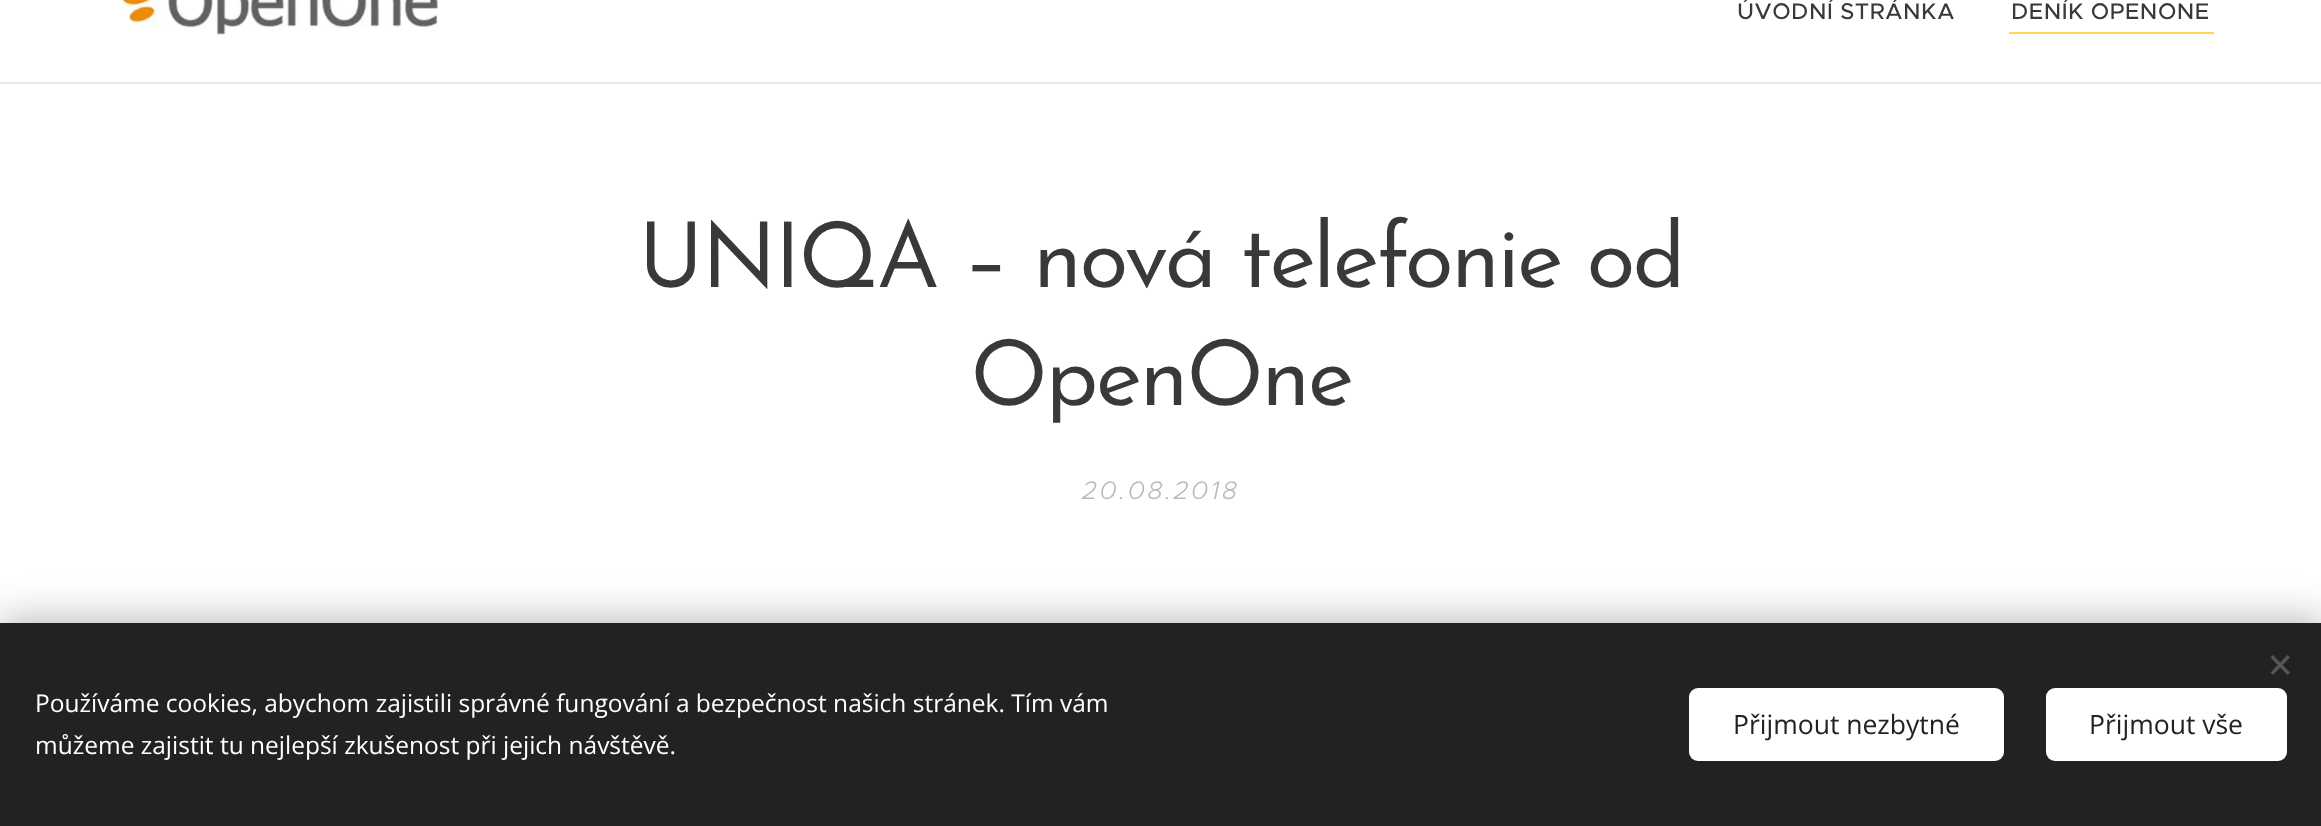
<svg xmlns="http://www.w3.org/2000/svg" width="2321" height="826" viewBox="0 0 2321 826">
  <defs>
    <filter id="blur1" x="-50%" y="-200%" width="200%" height="500%"><feGaussianBlur stdDeviation="22"/></filter>
  </defs>
  <rect width="100%" height="100%" fill="#ffffff"/>
  <image x="120" y="0" width="318" height="35" href="img1.png"/>
  <text x="1737" y="19" font-family="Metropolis" font-size="22.75" font-weight="500" letter-spacing="0.5" fill="#393939">ÚVODNÍ STRÁNKA</text>
  <text x="2011" y="19" font-family="Metropolis" font-size="22.75" font-weight="500" letter-spacing="0.5" fill="#393939">DENÍK OPENONE</text>
  <rect x="2009" y="32" width="205" height="2" fill="#ffd757"/>
  <rect x="0" y="82" width="2321" height="2" fill="#e8e8e8"/>
  <text x="638" y="287" font-family="Josefin Sans" font-size="91" letter-spacing="-2.75" fill="#393939">UNIQA – nová telefonie od</text>
  <text x="970" y="405" font-family="Josefin Sans" font-size="91" letter-spacing="-2.75" fill="#393939">OpenOne</text>
  <text x="1082" y="499" font-family="Metropolis" font-size="25.5" font-weight="300" font-style="italic" letter-spacing="2.5" fill="#bababa">20.08.2018</text>
  <rect x="0" y="623" width="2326" height="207" fill="#000000" fill-opacity="0.33" filter="url(#blur1)"/>
  <rect x="0" y="623" width="2321" height="203" fill="#222222"/>
  <path d="M2270.5 672.5L2287.5 655L2290 657.5L2273 675Z" fill="#555555"/>
  <path d="M2273 655L2290 672.5L2287.5 675L2270.5 657.5Z" fill="#555555"/>
  <text x="35" y="712" font-family="Open Sans" font-size="24.5" fill="#ffffff">Používáme cookies, abychom zajistili správné fungování a bezpečnost našich stránek. Tím vám</text>
  <text x="35" y="754" font-family="Open Sans" font-size="24.5" fill="#ffffff">můžeme zajistit tu nejlepší zkušenost při jejich návštěvě.</text>
  <rect x="1689" y="688" width="315" height="73" rx="9" fill="#ffffff"/>
  <text x="1733" y="734" font-family="Open Sans" font-size="26.5" fill="#222222">Přijmout nezbytné</text>
  <rect x="2046" y="688" width="241" height="73" rx="9" fill="#ffffff"/>
  <text x="2089" y="734" font-family="Open Sans" font-size="26.5" fill="#222222">Přijmout vše</text>
</svg>
